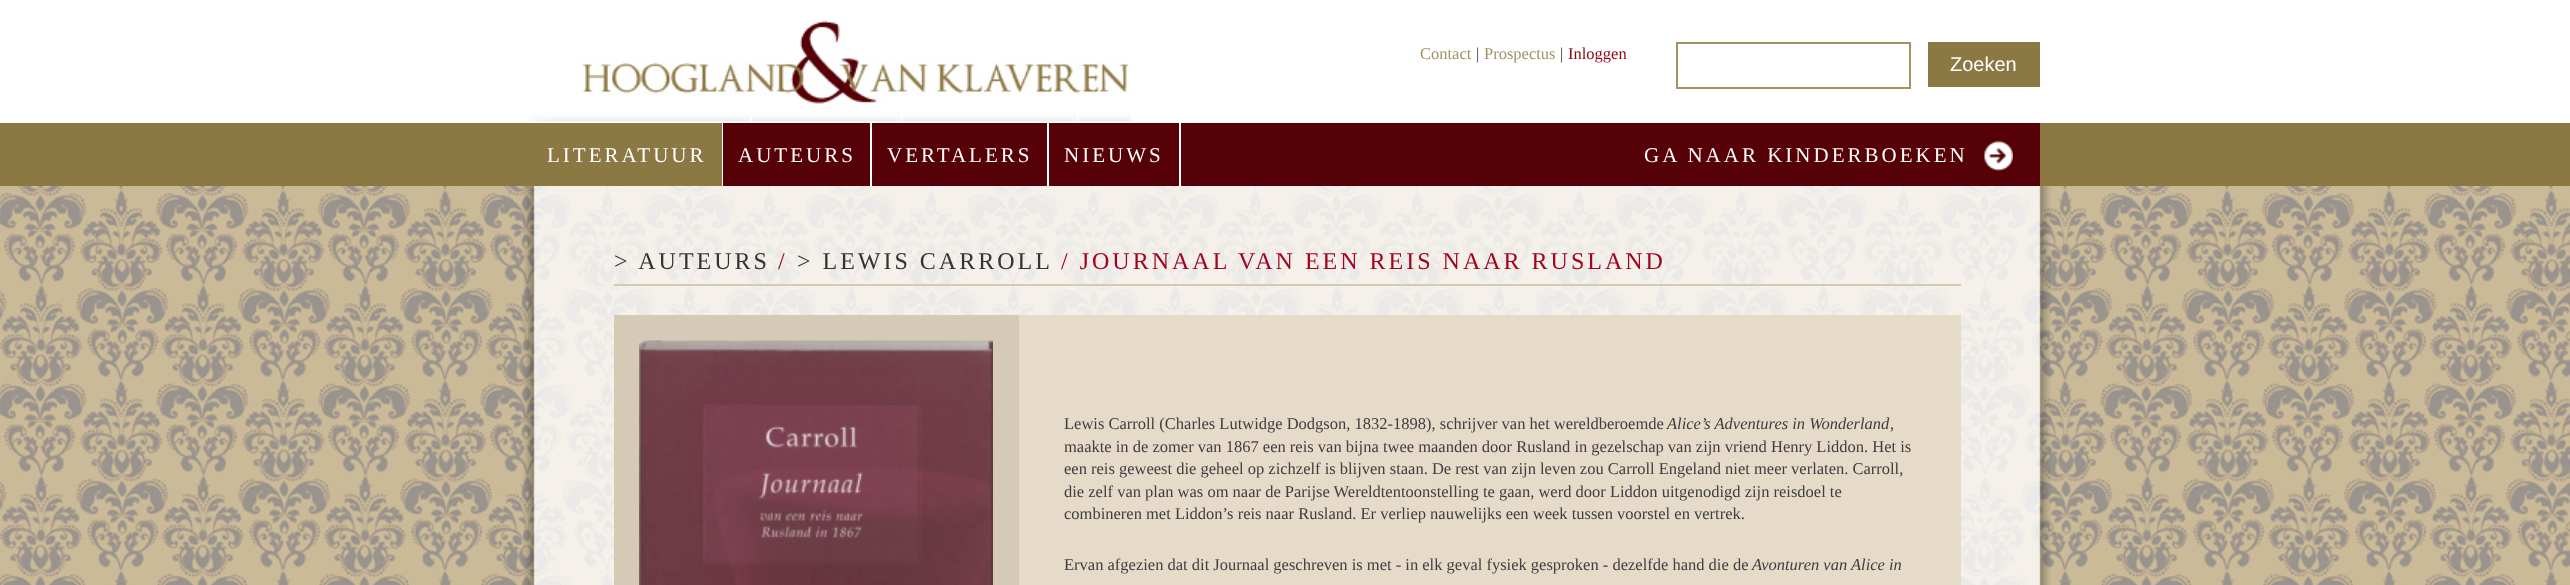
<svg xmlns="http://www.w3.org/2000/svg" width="2570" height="585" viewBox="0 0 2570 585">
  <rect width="100%" height="100%" fill="#ffffff"/>
  <image x="0" y="186" width="2570" height="399" href="img1.png"/>
  <image x="529" y="20" width="602" height="102" href="img2.png"/>
  <text x="1420" y="59" font-family="Liberation Serif" font-size="16.5" fill="#a49262">Contact</text>
  <text x="1476" y="59" font-family="Liberation Serif" font-size="16.5" fill="#3f3d40">|</text>
  <text x="1484" y="59" font-family="Liberation Serif" font-size="16.5" fill="#a49262">Prospectus</text>
  <text x="1560" y="59" font-family="Liberation Serif" font-size="16.5" fill="#3f3d40">|</text>
  <text x="1568" y="59" font-family="Liberation Serif" font-size="16.5" fill="#8e050f">Inloggen</text>
  <rect x="1677" y="43" width="233" height="45" fill="none" stroke="#a49262" stroke-width="2"/>
  <rect x="1928" y="42" width="112" height="45" fill="#8c7843"/>
  <text x="1950" y="71" font-family="Liberation Sans" font-size="20" fill="#ffffff">Zoeken</text>
  <rect x="0" y="123" width="2570" height="63" fill="#8c7842"/>
  <rect x="872" y="123" width="1168" height="63" fill="#560007"/>
  <rect x="722" y="123" width="1" height="63" fill="#ffffff"/>
  <text x="547" y="162" font-family="Liberation Serif" font-size="21" letter-spacing="3" fill="#ffffff">LITERATUUR</text>
  <rect x="723" y="123" width="147" height="63" fill="#560007"/>
  <rect x="870" y="123" width="2" height="63" fill="#ffffff"/>
  <text x="738" y="162" font-family="Liberation Serif" font-size="21" letter-spacing="3" fill="#ffffff">AUTEURS</text>
  <rect x="1047" y="123" width="2" height="63" fill="#ffffff"/>
  <text x="887" y="162" font-family="Liberation Serif" font-size="21" letter-spacing="3" fill="#ffffff">VERTALERS</text>
  <rect x="1179" y="123" width="2" height="63" fill="#ffffff"/>
  <text x="1064" y="162" font-family="Liberation Serif" font-size="21" letter-spacing="3" fill="#ffffff">NIEUWS</text>
  <image x="1984" y="141" width="29" height="30" href="img3.png"/>
  <text x="1644" y="162" font-family="Liberation Serif" font-size="21" letter-spacing="3" fill="#ffffff">GA NAAR KINDERBOEKEN</text>
  <image x="523" y="186" width="1528" height="399" href="img4.png"/>
  <rect x="614" y="284" width="1347" height="2" fill="#d5cab6"/>
  <text x="614" y="269" font-family="Liberation Serif" font-size="24" letter-spacing="3" fill="#333333">&gt; AUTEURS</text>
  <text x="778" y="269" font-family="Liberation Serif" font-size="24" letter-spacing="3" fill="#a3031f">/</text>
  <text x="797" y="269" font-family="Liberation Serif" font-size="24" letter-spacing="3" fill="#333333">&gt; LEWIS CARROLL</text>
  <text x="1061" y="269" font-family="Liberation Serif" font-size="24" letter-spacing="3" fill="#a3031f">/ JOURNAAL VAN EEN REIS NAAR RUSLAND</text>
  <rect x="614" y="315" width="405" height="270" fill="#d5cab6"/>
  <image x="639" y="340" width="354" height="245" href="img5.png"/>
  <rect x="1019" y="315" width="942" height="270" fill="#e6dbc9"/>
  <text x="1064" y="429" font-family="Liberation Serif" font-size="16.5" fill="#3f3d40">Lewis Carroll (Charles Lutwidge Dodgson, 1832-1898), schrijver van het wereldberoemde</text>
  <text x="1667" y="429" font-family="Liberation Serif" font-size="16.5" font-style="italic" fill="#3f3d40">Alice’s Adventures in Wonderland</text>
  <text x="1890" y="429" font-family="Liberation Serif" font-size="16.5" fill="#3f3d40">,</text>
  <text x="1064" y="452" font-family="Liberation Serif" font-size="16.5" fill="#3f3d40">maakte in de zomer van 1867 een reis van bijna twee maanden door Rusland in gezelschap van zijn vriend Henry Liddon. Het is</text>
  <text x="1064" y="474" font-family="Liberation Serif" font-size="16.5" fill="#3f3d40">een reis geweest die geheel op zichzelf is blijven staan. De rest van zijn leven zou Carroll Engeland niet meer verlaten. Carroll,</text>
  <text x="1064" y="497" font-family="Liberation Serif" font-size="16.5" fill="#3f3d40">die zelf van plan was om naar de Parijse Wereldtentoonstelling te gaan, werd door Liddon uitgenodigd zijn reisdoel te</text>
  <text x="1064" y="519" font-family="Liberation Serif" font-size="16.5" fill="#3f3d40">combineren met Liddon’s reis naar Rusland. Er verliep nauwelijks een week tussen voorstel en vertrek.</text>
  <text x="1064" y="570" font-family="Liberation Serif" font-size="16.5" fill="#3f3d40">Ervan afgezien dat dit Journaal geschreven is met - in elk geval fysiek gesproken - dezelfde hand die de</text>
  <text x="1752" y="570" font-family="Liberation Serif" font-size="16.5" font-style="italic" fill="#3f3d40">Avonturen van Alice in</text>
</svg>
